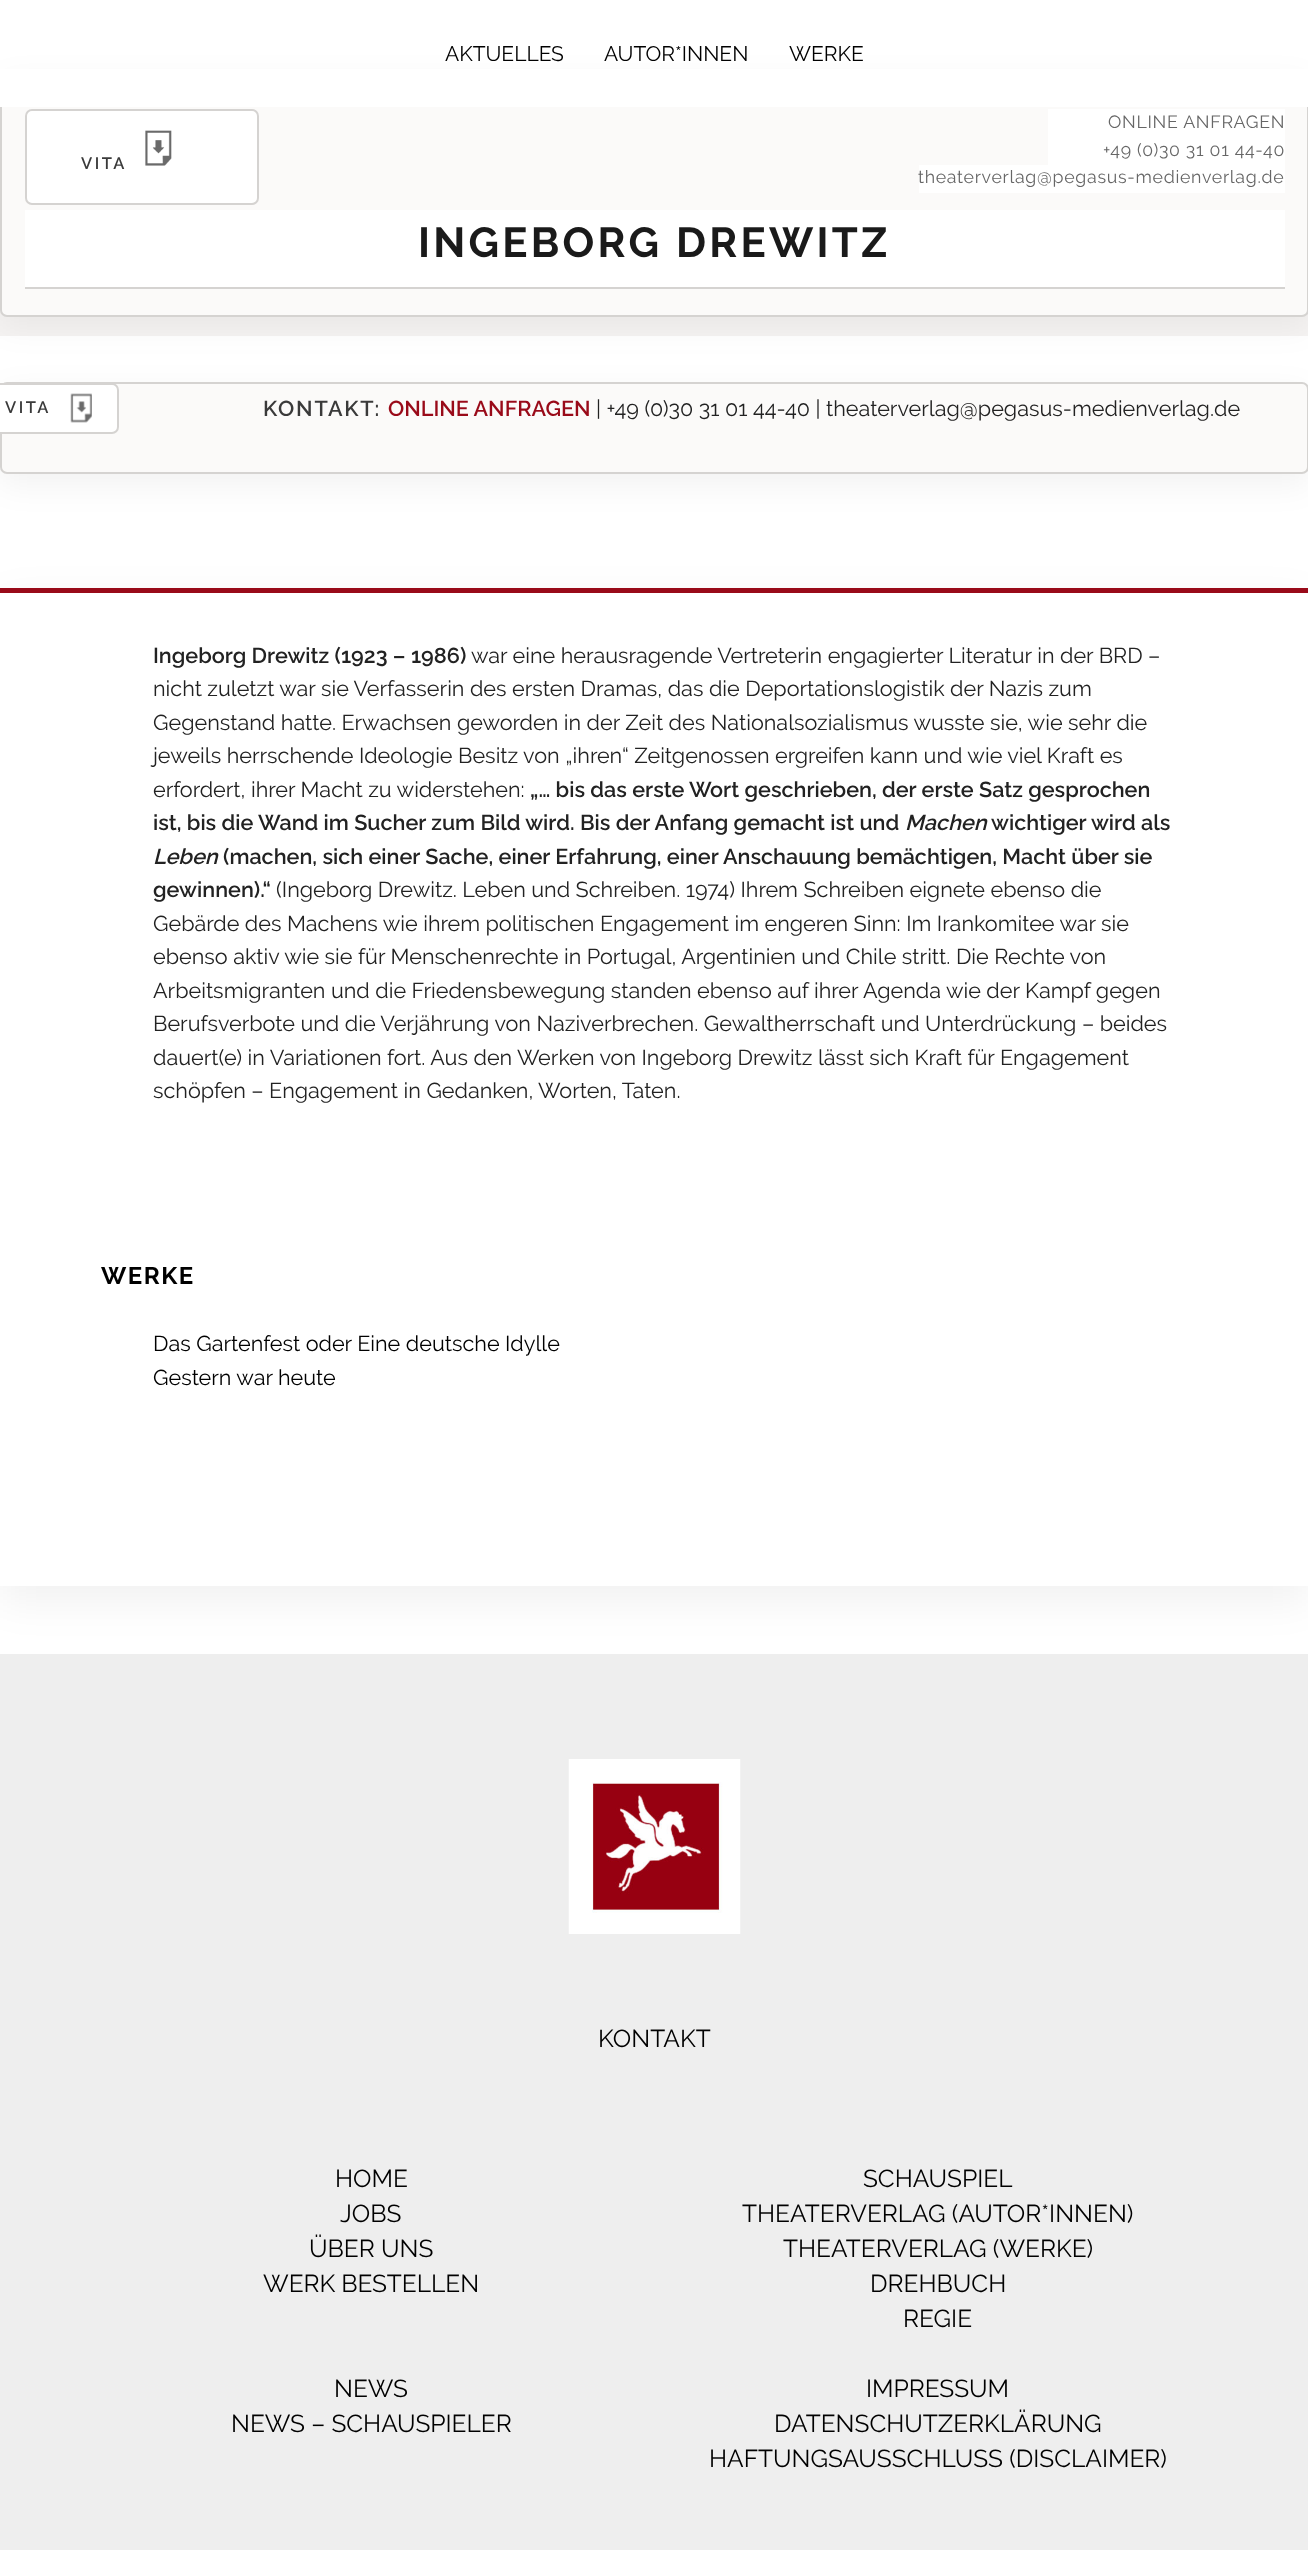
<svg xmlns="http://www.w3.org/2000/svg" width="1308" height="2550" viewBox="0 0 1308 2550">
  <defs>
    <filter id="blur1" x="-50%" y="-200%" width="200%" height="500%"><feGaussianBlur stdDeviation="16"/></filter>
    <filter id="blur2" x="-50%" y="-200%" width="200%" height="500%"><feGaussianBlur stdDeviation="21"/></filter>
  </defs>
  <rect width="100%" height="100%" fill="#ffffff"/>
  <rect x="0" y="310" width="1308" height="26" fill="#f5f3f2"/>
  <rect x="0" y="82" width="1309" height="245" rx="7" fill="#000000" fill-opacity="0.05" filter="url(#blur1)"/>
  <rect x="1" y="73" width="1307" height="243" rx="6" fill="#fbfaf9" stroke="#d5d3d1" stroke-width="2"/>
  <rect x="0" y="69" width="1308" height="38" fill="#ffffff"/>
  <text x="445" y="61" font-family="Raleway" font-size="21" fill="#000000">AKTUELLES</text>
  <text x="604" y="61" font-family="Raleway" font-size="21" fill="#000000">AUTOR*INNEN</text>
  <text x="789" y="61" font-family="Raleway" font-size="21" fill="#000000">WERKE</text>
  <rect x="26" y="110" width="232" height="94" rx="6" fill="#ffffff" stroke="#d5d3d1" stroke-width="2"/>
  <text x="81" y="169" font-family="Raleway" font-size="16.5" font-weight="600" letter-spacing="2.5" fill="#3a3a3a">VITA</text>
  <image x="145" y="130" width="27" height="36" href="img1.png"/>
  <rect x="1048" y="109" width="237" height="56" fill="#ffffff"/>
  <text x="1108" y="128" font-family="Raleway" font-size="17.75" letter-spacing="0.7" fill="#666666">ONLINE ANFRAGEN</text>
  <text x="1103" y="156" font-family="Raleway" font-size="17.75" letter-spacing="0.7" fill="#666666">+49 (0)30 31 01 44-40</text>
  <rect x="919" y="165" width="366" height="28" fill="#ffffff"/>
  <text x="918" y="183" font-family="Raleway" font-size="17.75" letter-spacing="0.7" fill="#666666">theaterverlag@pegasus-medienverlag.de</text>
  <rect x="25" y="210" width="1260" height="77" fill="#ffffff"/>
  <rect x="25" y="287" width="1260" height="2" fill="#d5d3d1"/>
  <text x="418" y="257" font-family="Raleway" font-size="42" font-weight="bold" letter-spacing="3.25" fill="#1a1a1a">INGEBORG</text>
  <text x="676" y="257" font-family="Raleway" font-size="42" font-weight="bold" letter-spacing="3.25" fill="#1a1a1a">DREWITZ</text>
  <rect x="0" y="392" width="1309" height="93" rx="7" fill="#000000" fill-opacity="0.05" filter="url(#blur1)"/>
  <rect x="1" y="383" width="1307" height="90" rx="6" fill="#fbfaf9" stroke="#d5d3d1" stroke-width="2"/>
  <rect x="-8" y="384" width="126" height="49" rx="6" fill="#ffffff" stroke="#d5d3d1" stroke-width="2"/>
  <text x="5" y="413" font-family="Raleway" font-size="16.5" font-weight="600" letter-spacing="2.5" fill="#3a3a3a">VITA</text>
  <image x="70" y="393" width="22" height="30" href="img2.png"/>
  <text x="263" y="416" font-family="Raleway" font-size="21.6" font-weight="600" letter-spacing="1.75" fill="#3a3a3a">KONTAKT:</text>
  <text x="388" y="416" font-family="Raleway" font-size="21.6" font-weight="600" fill="#990a19">ONLINE ANFRAGEN</text>
  <text x="596" y="416" font-family="Raleway" font-size="21.6" fill="#222222">| +49 (0)30 31 01 44-40 | theaterverlag@pegasus-medienverlag.de</text>
  <rect x="0" y="602" width="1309" height="998" fill="#000000" fill-opacity="0.06" filter="url(#blur2)"/>
  <rect x="0" y="593" width="1308" height="993" fill="#ffffff"/>
  <rect x="0" y="588" width="1308" height="5" fill="#990a19"/>
  <text x="153" y="663" font-family="Raleway" font-size="21.6" font-weight="600" fill="#222222">Ingeborg Drewitz (1923 – 1986)</text>
  <text x="471" y="663" font-family="Raleway" font-size="21.6" fill="#222222">war eine herausragende Vertreterin engagierter Literatur in der BRD –</text>
  <text x="153" y="696" font-family="Raleway" font-size="21.6" fill="#222222">nicht zuletzt war sie Verfasserin des ersten Dramas, das die Deportationslogistik der Nazis zum</text>
  <text x="153" y="730" font-family="Raleway" font-size="21.6" fill="#222222">Gegenstand hatte. Erwachsen geworden in der Zeit des Nationalsozialismus wusste sie, wie sehr die</text>
  <text x="153" y="763" font-family="Raleway" font-size="21.6" fill="#222222">jeweils herrschende Ideologie Besitz von „ihren“ Zeitgenossen ergreifen kann und wie viel Kraft es</text>
  <text x="153" y="797" font-family="Raleway" font-size="21.6" fill="#222222">erfordert, ihrer Macht zu widerstehen:</text>
  <text x="530" y="797" font-family="Raleway" font-size="21.6" font-weight="600" fill="#222222">„… bis das erste Wort geschrieben, der erste Satz gesprochen</text>
  <text x="153" y="830" font-family="Raleway" font-size="21.6" font-weight="600" fill="#222222">ist, bis die Wand im Sucher zum Bild wird. Bis der Anfang gemacht ist und</text>
  <text x="905" y="830" font-family="Raleway" font-size="21.6" font-weight="600" font-style="italic" fill="#222222">Machen</text>
  <text x="991" y="830" font-family="Raleway" font-size="21.6" font-weight="600" fill="#222222">wichtiger wird als</text>
  <text x="153" y="864" font-family="Raleway" font-size="21.6" font-weight="600" font-style="italic" fill="#222222">Leben</text>
  <text x="223" y="864" font-family="Raleway" font-size="21.6" font-weight="600" fill="#222222">(machen, sich einer Sache, einer Erfahrung, einer Anschauung bemächtigen, Macht über sie</text>
  <text x="153" y="897" font-family="Raleway" font-size="21.6" font-weight="600" fill="#222222">gewinnen).“</text>
  <text x="276" y="897" font-family="Raleway" font-size="21.6" fill="#222222">(Ingeborg Drewitz. Leben und Schreiben. 1974) Ihrem Schreiben eignete ebenso die</text>
  <text x="153" y="931" font-family="Raleway" font-size="21.6" fill="#222222">Gebärde des Machens wie ihrem politischen Engagement im engeren Sinn: Im Irankomitee war sie</text>
  <text x="153" y="964" font-family="Raleway" font-size="21.6" fill="#222222">ebenso aktiv wie sie für Menschenrechte in Portugal, Argentinien und Chile stritt. Die Rechte von</text>
  <text x="153" y="998" font-family="Raleway" font-size="21.6" fill="#222222">Arbeitsmigranten und die Friedensbewegung standen ebenso auf ihrer Agenda wie der Kampf gegen</text>
  <text x="153" y="1031" font-family="Raleway" font-size="21.6" fill="#222222">Berufsverbote und die Verjährung von Naziverbrechen. Gewaltherrschaft und Unterdrückung – beides</text>
  <text x="153" y="1065" font-family="Raleway" font-size="21.6" fill="#222222">dauert(e) in Variationen fort. Aus den Werken von Ingeborg Drewitz lässt sich Kraft für Engagement</text>
  <text x="153" y="1098" font-family="Raleway" font-size="21.6" fill="#222222">schöpfen – Engagement in Gedanken, Worten, Taten.</text>
  <text x="101" y="1284" font-family="Raleway" font-size="24" font-weight="bold" letter-spacing="1.5" fill="#000000">WERKE</text>
  <text x="153" y="1351" font-family="Raleway" font-size="21.6" fill="#000000">Das Gartenfest oder Eine deutsche Idylle</text>
  <text x="153" y="1385" font-family="Raleway" font-size="21.6" fill="#000000">Gestern war heute</text>
  <rect x="0" y="1654" width="1308" height="896" fill="#eeeeee"/>
  <image x="568" y="1759" width="173" height="175" href="img3.png"/>
  <text x="598" y="2047" font-family="Raleway" font-size="24.5" fill="#000000">KONTAKT</text>
  <text x="335" y="2187" font-family="Raleway" font-size="24.5" fill="#000000">HOME</text>
  <text x="340" y="2222" font-family="Raleway" font-size="24.5" fill="#000000">JOBS</text>
  <text x="309" y="2257" font-family="Raleway" font-size="24.5" fill="#000000">ÜBER UNS</text>
  <text x="263" y="2292" font-family="Raleway" font-size="24.5" fill="#000000">WERK BESTELLEN</text>
  <text x="863" y="2187" font-family="Raleway" font-size="24.5" fill="#000000">SCHAUSPIEL</text>
  <text x="742" y="2222" font-family="Raleway" font-size="24.5" fill="#000000">THEATERVERLAG (AUTOR*INNEN)</text>
  <text x="783" y="2257" font-family="Raleway" font-size="24.5" fill="#000000">THEATERVERLAG (WERKE)</text>
  <text x="870" y="2292" font-family="Raleway" font-size="24.5" fill="#000000">DREHBUCH</text>
  <text x="903" y="2327" font-family="Raleway" font-size="24.5" fill="#000000">REGIE</text>
  <text x="334" y="2397" font-family="Raleway" font-size="24.5" fill="#000000">NEWS</text>
  <text x="231" y="2432" font-family="Raleway" font-size="24.5" fill="#000000">NEWS – SCHAUSPIELER</text>
  <text x="866" y="2397" font-family="Raleway" font-size="24.5" fill="#000000">IMPRESSUM</text>
  <text x="774" y="2432" font-family="Raleway" font-size="24.5" fill="#000000">DATENSCHUTZERKLÄRUNG</text>
  <text x="709" y="2467" font-family="Raleway" font-size="24.5" fill="#000000">HAFTUNGSAUSSCHLUSS (DISCLAIMER)</text>
</svg>
